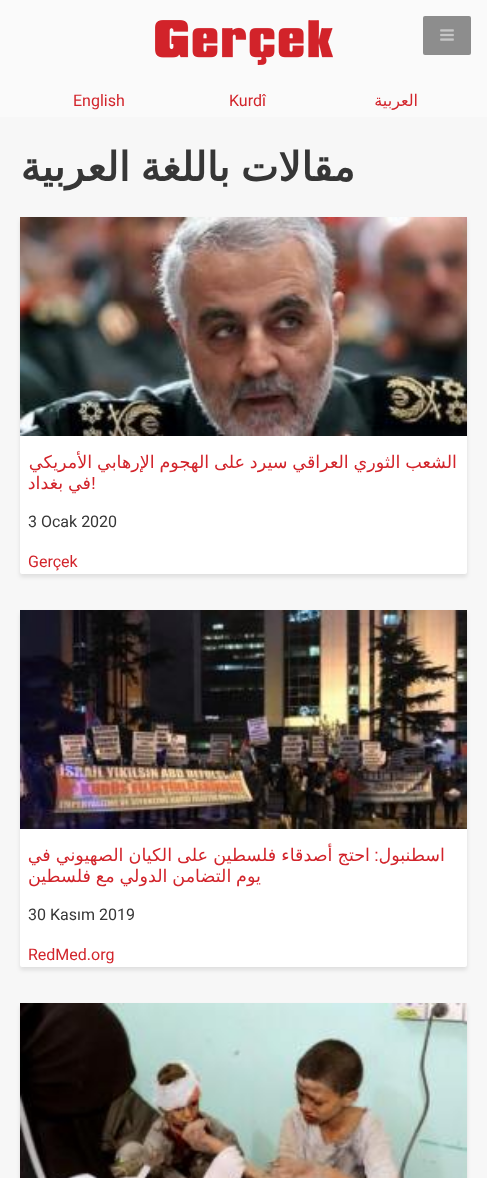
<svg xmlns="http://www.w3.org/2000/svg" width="487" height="1178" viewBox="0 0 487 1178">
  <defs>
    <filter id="blur1" x="-50%" y="-200%" width="200%" height="500%"><feGaussianBlur stdDeviation="2"/></filter>
  </defs>
  <rect width="100%" height="100%" fill="#f7f7f7"/>
  <rect x="0" y="0" width="487" height="117" fill="#fafafa"/>
  <rect x="423" y="16" width="48" height="39" rx="2" fill="#8d8d8d"/>
  <image x="440" y="29" width="14" height="12" href="img1.png"/>
  <image x="155" y="20" width="178" height="45" href="img2.png"/>
  <text x="418" y="106" font-family="DejaVu Sans" font-size="16" direction="rtl" fill="#d2242b">العربية</text>
  <text x="229" y="106" font-family="Roboto" font-size="16" fill="#d2242b">Kurdî</text>
  <text x="73" y="106" font-family="Roboto" font-size="16" fill="#d2242b">English</text>
  <text x="355" y="181" word-spacing="-2" font-family="DejaVu Sans" font-size="40" font-weight="bold" direction="rtl" fill="#363636">مقالات باللغة العربية</text>
  <rect x="20" y="220" width="447" height="357" rx="2" fill="#000000" fill-opacity="0.1" filter="url(#blur1)"/>
  <rect x="20" y="217" width="447" height="357" rx="2" fill="#ffffff"/>
  <image x="20" y="217" width="447" height="219" href="img3.png"/>
  <text x="457" y="468" word-spacing="-0.75" font-family="DejaVu Sans" font-size="17.6" direction="rtl" fill="#d2242b">الشعب الثوري العراقي سيرد على الهجوم الإرهابي الأمريكي</text>
  <text x="91" y="489" font-family="Liberation Sans" font-size="17.6" fill="#d2242b">!</text>
  <text x="91" y="489" word-spacing="-0.75" font-family="DejaVu Sans" font-size="17.6" direction="rtl" fill="#d2242b">في بغداد</text>
  <text x="28" y="527" font-family="Roboto" font-size="16" fill="#363636">3 Ocak 2020</text>
  <text x="28" y="567" font-family="Roboto" font-size="16" fill="#d2242b">Gerçek</text>
  <rect x="20" y="613" width="447" height="357" rx="2" fill="#000000" fill-opacity="0.1" filter="url(#blur1)"/>
  <rect x="20" y="610" width="447" height="357" rx="2" fill="#ffffff"/>
  <image x="20" y="610" width="447" height="219" href="img4.png"/>
  <text x="445" y="861" font-family="DejaVu Sans" font-size="17.6" direction="rtl" fill="#d2242b">اسطنبول</text>
  <text x="379" y="861" font-family="Liberation Sans" font-size="17.6" direction="rtl" fill="#d2242b">:</text>
  <text x="370" y="861" word-spacing="-0.5" font-family="DejaVu Sans" font-size="17.6" direction="rtl" fill="#d2242b">احتج أصدقاء فلسطين على الكيان الصهيوني في</text>
  <text x="261" y="882" word-spacing="-0.75" font-family="DejaVu Sans" font-size="17.6" direction="rtl" fill="#d2242b">يوم التضامن الدولي مع فلسطين</text>
  <text x="28" y="920" font-family="Roboto" font-size="16" fill="#363636">30 Kasım 2019</text>
  <text x="28" y="960" font-family="Roboto" font-size="16" fill="#d2242b">RedMed.org</text>
  <rect x="20" y="1006" width="447" height="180" rx="2" fill="#000000" fill-opacity="0.1" filter="url(#blur1)"/>
  <image x="20" y="1003" width="447" height="175" href="img5.png"/>
</svg>
